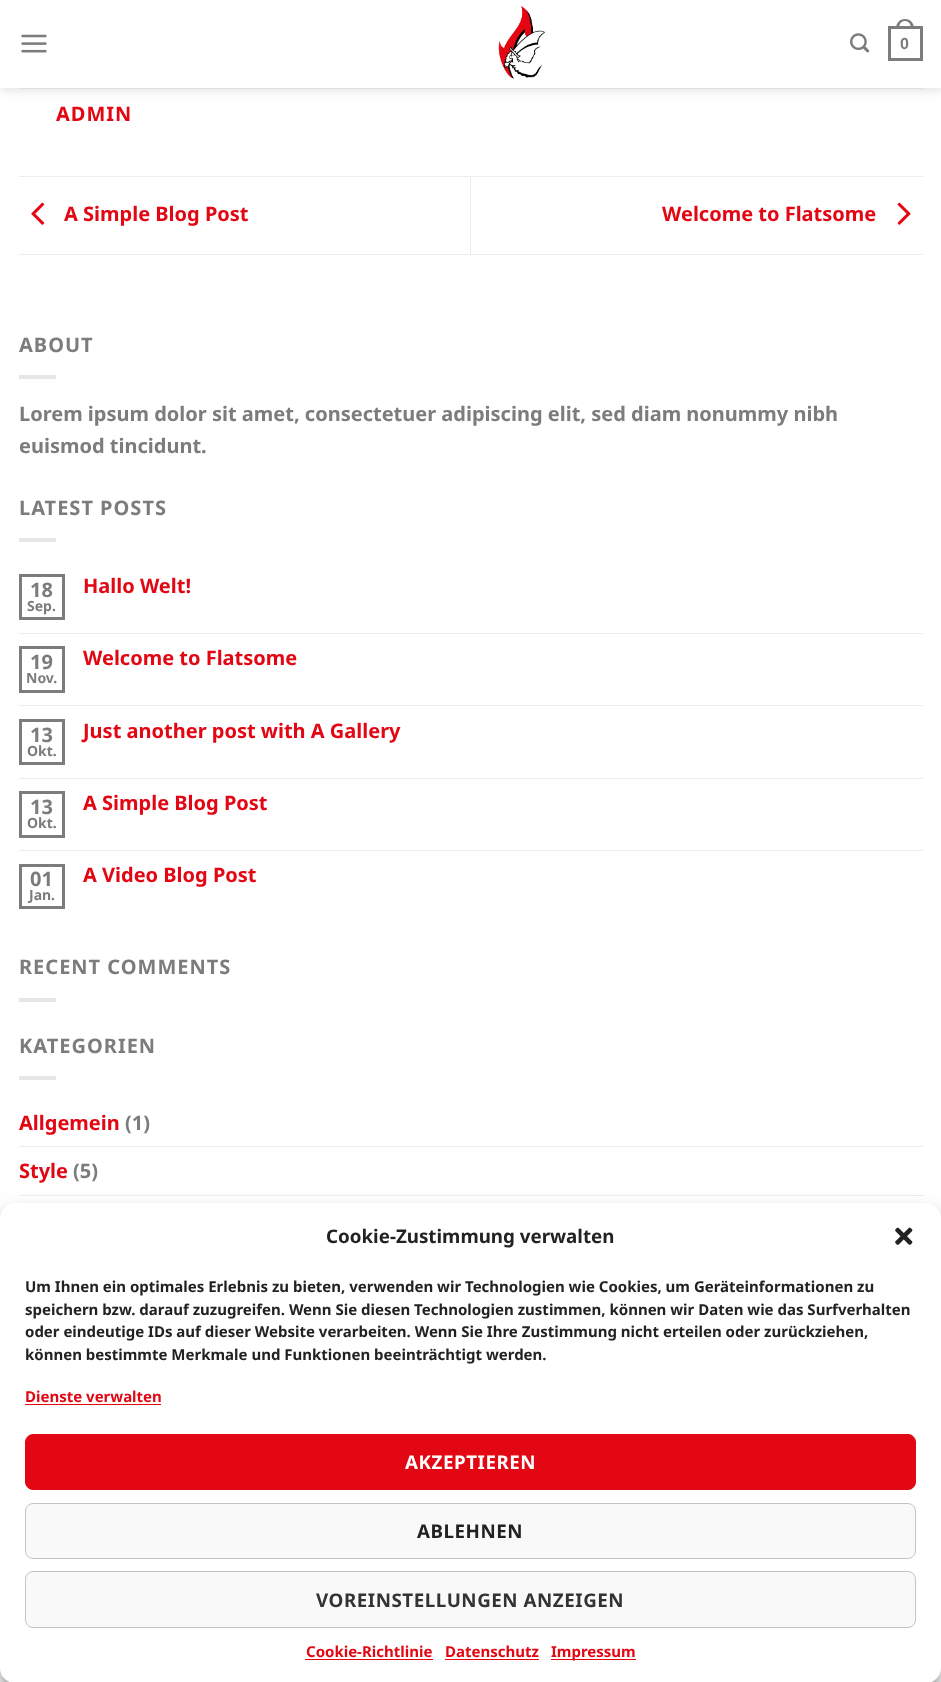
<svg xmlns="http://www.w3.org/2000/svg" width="941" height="1682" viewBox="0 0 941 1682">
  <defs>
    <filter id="blur1" x="-50%" y="-200%" width="200%" height="500%"><feGaussianBlur stdDeviation="6"/></filter>
    <filter id="blur2" x="-50%" y="-200%" width="200%" height="500%"><feGaussianBlur stdDeviation="4"/></filter>
    <filter id="blur3" x="-50%" y="-200%" width="200%" height="500%"><feGaussianBlur stdDeviation="12.5"/></filter>
  </defs>
  <rect width="100%" height="100%" fill="#ffffff"/>
  <rect x="1" y="1" width="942" height="88" fill="#000000" fill-opacity="0.15" filter="url(#blur1)"/>
  <rect x="0" y="0" width="941" height="88" fill="#ffffff"/>
  <image x="21" y="34" width="26" height="19" href="img1.png"/>
  <image x="498" y="6" width="47" height="74" href="img2.png"/>
  <image x="850" y="33" width="20" height="20" href="img3.png"/>
  <rect x="889.5" y="27.5" width="32" height="32" fill="none" stroke="#7c7c7c" stroke-width="3"/>
  <path d="M905 19C911 19 914 23.5 914 29H896C896 23.5 899 19 905 19ZM905 21C909.5 21 911 25 911 29H899C899 25 900.5 21 905 21Z" fill="#7c7c7c" fill-rule="evenodd"/>
  <text x="900" y="49" font-family="Liberation Sans" font-size="16" font-weight="bold" fill="#7c7c7c">0</text>
  <rect x="19" y="88" width="904" height="1" fill="#e0e0e0"/>
  <text x="56" y="121" font-family="Noto Sans" font-size="20" font-weight="bold" letter-spacing="1" fill="#e30613">ADMIN</text>
  <rect x="19" y="176" width="904" height="1" fill="#ececec"/>
  <rect x="19" y="254" width="904" height="1" fill="#ececec"/>
  <image x="31" y="202" width="14" height="23" href="img4.png"/>
  <text x="64" y="221" font-family="Noto Sans" font-size="20" font-weight="bold" fill="#e30613">A Simple Blog Post</text>
  <rect x="470" y="178" width="1" height="76" fill="#ececec"/>
  <text x="662" y="221" font-family="Noto Sans" font-size="20" font-weight="bold" fill="#e30613">Welcome to Flatsome</text>
  <image x="897" y="202" width="14" height="23" href="img5.png"/>
  <text x="19" y="352" font-family="Noto Sans" font-size="20" font-weight="bold" letter-spacing="1" fill="#7c7c7c">ABOUT</text>
  <rect x="19" y="375" width="37" height="4" fill="#e6e6e6"/>
  <text x="19" y="421" font-family="Noto Sans" font-size="20" font-weight="bold" fill="#7c7c7c">Lorem ipsum dolor sit amet, consectetuer adipiscing elit, sed diam nonummy nibh</text>
  <text x="19" y="453" font-family="Noto Sans" font-size="20" font-weight="bold" fill="#7c7c7c">euismod tincidunt.</text>
  <text x="19" y="515" font-family="Noto Sans" font-size="20" font-weight="bold" letter-spacing="1" fill="#7c7c7c">LATEST POSTS</text>
  <rect x="19" y="538" width="37" height="4" fill="#e6e6e6"/>
  <rect x="20.5" y="575.5" width="43" height="43" fill="none" stroke="#7c7c7c" stroke-width="3"/>
  <text x="30" y="597" font-family="Noto Sans" font-size="20" font-weight="bold" fill="#7c7c7c">18</text>
  <text x="27" y="611" font-family="Noto Sans" font-size="14" font-weight="bold" fill="#7c7c7c">Sep.</text>
  <text x="83" y="593" font-family="Noto Sans" font-size="20" font-weight="bold" fill="#e30613">Hallo Welt!</text>
  <rect x="19" y="633" width="904" height="1" fill="#ececec"/>
  <rect x="20.5" y="647.5" width="43" height="44" fill="none" stroke="#7c7c7c" stroke-width="3"/>
  <text x="30" y="669" font-family="Noto Sans" font-size="20" font-weight="bold" fill="#7c7c7c">19</text>
  <text x="26" y="683" font-family="Noto Sans" font-size="14" font-weight="bold" fill="#7c7c7c">Nov.</text>
  <text x="83" y="665" font-family="Noto Sans" font-size="20" font-weight="bold" fill="#e30613">Welcome to Flatsome</text>
  <rect x="19" y="705" width="904" height="1" fill="#ececec"/>
  <rect x="20.5" y="720.5" width="43" height="43" fill="none" stroke="#7c7c7c" stroke-width="3"/>
  <text x="30" y="742" font-family="Noto Sans" font-size="20" font-weight="bold" fill="#7c7c7c">13</text>
  <text x="27" y="756" font-family="Noto Sans" font-size="14" font-weight="bold" fill="#7c7c7c">Okt.</text>
  <text x="83" y="738" font-family="Noto Sans" font-size="20" font-weight="bold" fill="#e30613">Just another post with A Gallery</text>
  <rect x="19" y="778" width="904" height="1" fill="#ececec"/>
  <rect x="20.5" y="792.5" width="43" height="44" fill="none" stroke="#7c7c7c" stroke-width="3"/>
  <text x="30" y="814" font-family="Noto Sans" font-size="20" font-weight="bold" fill="#7c7c7c">13</text>
  <text x="27" y="828" font-family="Noto Sans" font-size="14" font-weight="bold" fill="#7c7c7c">Okt.</text>
  <text x="83" y="810" font-family="Noto Sans" font-size="20" font-weight="bold" fill="#e30613">A Simple Blog Post</text>
  <rect x="19" y="850" width="904" height="1" fill="#ececec"/>
  <rect x="20.5" y="865.5" width="43" height="42" fill="none" stroke="#7c7c7c" stroke-width="3"/>
  <text x="30" y="886" font-family="Noto Sans" font-size="20" font-weight="bold" fill="#7c7c7c">01</text>
  <text x="29" y="900" font-family="Noto Sans" font-size="14" font-weight="bold" fill="#7c7c7c">Jan.</text>
  <text x="83" y="882" font-family="Noto Sans" font-size="20" font-weight="bold" fill="#e30613">A Video Blog Post</text>
  <text x="19" y="974" font-family="Noto Sans" font-size="20" font-weight="bold" letter-spacing="1" fill="#7c7c7c">RECENT COMMENTS</text>
  <rect x="19" y="998" width="37" height="4" fill="#e6e6e6"/>
  <text x="19" y="1053" font-family="Noto Sans" font-size="20" font-weight="bold" letter-spacing="1" fill="#7c7c7c">KATEGORIEN</text>
  <rect x="19" y="1076" width="37" height="4" fill="#e6e6e6"/>
  <text x="19" y="1130" font-family="Noto Sans" font-size="20" font-weight="bold" fill="#e30613">Allgemein</text>
  <text x="125" y="1130" font-family="Noto Sans" font-size="20" font-weight="bold" fill="#7c7c7c">(1)</text>
  <rect x="19" y="1146" width="904" height="1" fill="#ececec"/>
  <text x="19" y="1178" font-family="Noto Sans" font-size="20" font-weight="bold" fill="#e30613">Style</text>
  <text x="73" y="1178" font-family="Noto Sans" font-size="20" font-weight="bold" fill="#7c7c7c">(5)</text>
  <rect x="19" y="1195" width="904" height="1" fill="#ececec"/>
  <rect x="0" y="1210" width="941" height="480" rx="15" fill="#000000" fill-opacity="0.23" filter="url(#blur2)"/>
  <rect x="0" y="1215" width="941" height="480" rx="15" fill="#000000" fill-opacity="0.19" filter="url(#blur3)"/>
  <rect x="0" y="1203" width="941" height="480" rx="15" fill="#ffffff"/>
  <text x="326" y="1243" font-family="Noto Sans" font-size="18.75" font-weight="bold" fill="#222222">Cookie-Zustimmung verwalten</text>
  <image x="895" y="1227" width="18" height="18" href="img6.png"/>
  <text x="25" y="1292" font-family="Noto Sans" font-size="15" font-weight="bold" fill="#222222">Um Ihnen ein optimales Erlebnis zu bieten, verwenden wir Technologien wie Cookies, um Geräteinformationen zu</text>
  <text x="25" y="1315" font-family="Noto Sans" font-size="15" font-weight="bold" fill="#222222">speichern bzw. darauf zuzugreifen. Wenn Sie diesen Technologien zustimmen, können wir Daten wie das Surfverhalten</text>
  <text x="25" y="1337" font-family="Noto Sans" font-size="15" font-weight="bold" fill="#222222">oder eindeutige IDs auf dieser Website verarbeiten. Wenn Sie Ihre Zustimmung nicht erteilen oder zurückziehen,</text>
  <text x="25" y="1360" font-family="Noto Sans" font-size="15" font-weight="bold" fill="#222222">können bestimmte Merkmale und Funktionen beeinträchtigt werden.</text>
  <text x="25" y="1402" font-family="Noto Sans" font-size="15" font-weight="bold" fill="#e30613">Dienste verwalten</text>
  <rect x="25" y="1404" width="136" height="1" fill="#e30613"/>
  <rect x="25.5" y="1434.5" width="890" height="55" rx="7.5" fill="#e30613" stroke="#e30613"/>
  <text x="405" y="1469" font-family="Noto Sans" font-size="18.75" font-weight="bold" letter-spacing="0.55" fill="#ffffff">AKZEPTIEREN</text>
  <rect x="25.5" y="1503.5" width="890" height="55" rx="7.5" fill="#f9f9f9" stroke="#c4c4c4"/>
  <text x="417" y="1538" font-family="Noto Sans" font-size="18.75" font-weight="bold" letter-spacing="0.55" fill="#222222">ABLEHNEN</text>
  <rect x="25.5" y="1571.5" width="890" height="56" rx="7.5" fill="#f9f9f9" stroke="#c4c4c4"/>
  <text x="316" y="1607" font-family="Noto Sans" font-size="18.75" font-weight="bold" letter-spacing="0.55" fill="#333333">VOREINSTELLUNGEN ANZEIGEN</text>
  <text x="306" y="1657" font-family="Noto Sans" font-size="15" font-weight="bold" fill="#e30613">Cookie-Richtlinie</text>
  <rect x="305" y="1659" width="128" height="1" fill="#e30613"/>
  <text x="445" y="1657" font-family="Noto Sans" font-size="15" font-weight="bold" fill="#e30613">Datenschutz</text>
  <rect x="445" y="1659" width="94" height="1" fill="#e30613"/>
  <rect x="551" y="1659" width="85" height="1" fill="#e30613"/>
  <text x="551" y="1657" font-family="Noto Sans" font-size="15" font-weight="bold" fill="#e30613">Impressum</text>
</svg>
